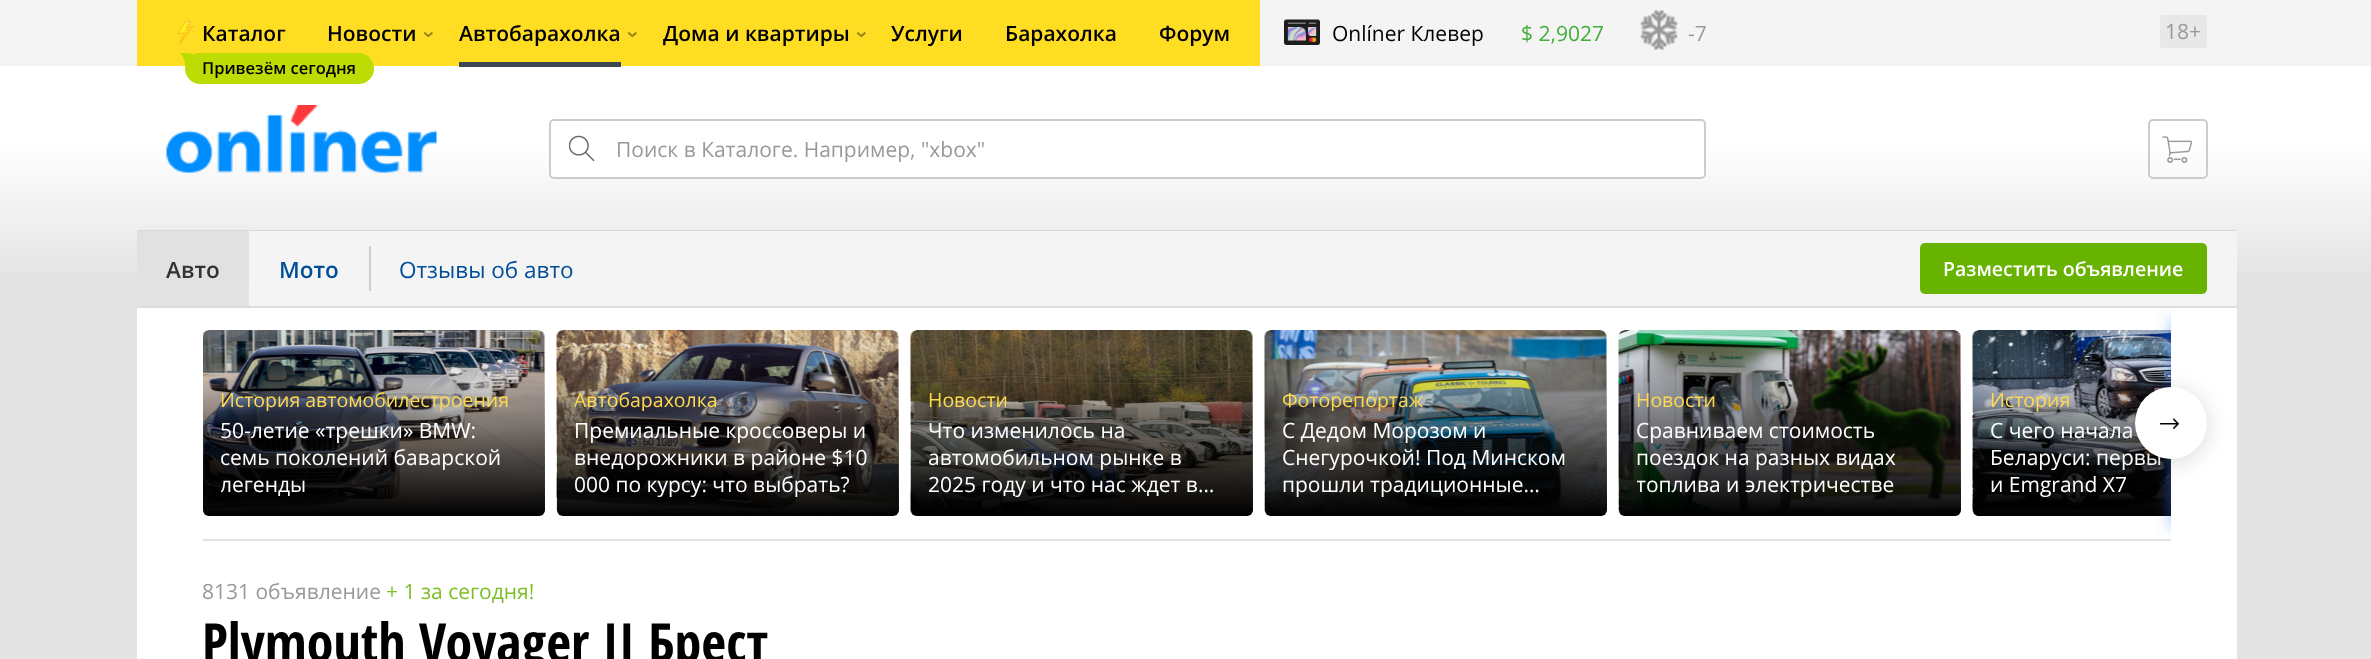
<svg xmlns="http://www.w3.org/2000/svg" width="2371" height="659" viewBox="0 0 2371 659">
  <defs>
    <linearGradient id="g1" gradientUnits="userSpaceOnUse" x1="1186" y1="0" x2="1186" y2="285"><stop offset="0" stop-color="#ffffff"/><stop offset="0.5" stop-color="#ffffff"/><stop offset="1" stop-color="#e3e3e3"/></linearGradient>
    <linearGradient id="g2" gradientUnits="userSpaceOnUse" x1="374" y1="330" x2="374" y2="516"><stop offset="0" stop-color="#000000" stop-opacity="0"/><stop offset="0.16" stop-color="#000000" stop-opacity="0"/><stop offset="1" stop-color="#000000"/></linearGradient>
    <clipPath id="clip1"><rect x="221" y="387" width="306" height="24"/></clipPath>
    <clipPath id="clip2"><rect x="221" y="417" width="306" height="81"/></clipPath>
    <linearGradient id="g3" gradientUnits="userSpaceOnUse" x1="728" y1="330" x2="728" y2="516"><stop offset="0" stop-color="#000000" stop-opacity="0"/><stop offset="0.16" stop-color="#000000" stop-opacity="0"/><stop offset="1" stop-color="#000000"/></linearGradient>
    <clipPath id="clip3"><rect x="575" y="387" width="306" height="24"/></clipPath>
    <clipPath id="clip4"><rect x="575" y="417" width="306" height="81"/></clipPath>
    <linearGradient id="g4" gradientUnits="userSpaceOnUse" x1="1082" y1="330" x2="1082" y2="516"><stop offset="0" stop-color="#000000" stop-opacity="0"/><stop offset="0.16" stop-color="#000000" stop-opacity="0"/><stop offset="1" stop-color="#000000"/></linearGradient>
    <linearGradient id="g5" gradientUnits="userSpaceOnUse" x1="1436" y1="330" x2="1436" y2="516"><stop offset="0" stop-color="#000000" stop-opacity="0"/><stop offset="0.16" stop-color="#000000" stop-opacity="0"/><stop offset="1" stop-color="#000000"/></linearGradient>
    <clipPath id="clip5"><rect x="1283" y="387" width="306" height="24"/></clipPath>
    <linearGradient id="g6" gradientUnits="userSpaceOnUse" x1="1790" y1="330" x2="1790" y2="516"><stop offset="0" stop-color="#000000" stop-opacity="0"/><stop offset="0.16" stop-color="#000000" stop-opacity="0"/><stop offset="1" stop-color="#000000"/></linearGradient>
    <clipPath id="clip6"><rect x="1637" y="417" width="306" height="81"/></clipPath>
    <linearGradient id="g7" gradientUnits="userSpaceOnUse" x1="2144" y1="330" x2="2144" y2="516"><stop offset="0" stop-color="#000000" stop-opacity="0"/><stop offset="0.16" stop-color="#000000" stop-opacity="0"/><stop offset="1" stop-color="#000000"/></linearGradient>
    <clipPath id="clip7"><rect x="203" y="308" width="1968" height="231"/></clipPath>
    <filter id="blur1" x="-50%" y="-200%" width="200%" height="500%"><feGaussianBlur stdDeviation="7.5"/></filter>
    <filter id="blur2" x="-50%" y="-200%" width="200%" height="500%"><feGaussianBlur stdDeviation="11"/></filter>
  </defs>
  <rect width="100%" height="100%" fill="#e3e3e3"/>
  <rect x="0" y="66" width="2371" height="206" fill="url(#g1)"/>
  <rect x="0" y="0" width="2371" height="66" fill="#f4f4f4"/>
  <rect x="137" y="0" width="1123" height="66" fill="#ffdd22"/>
  <text x="202" y="41" font-family="Open Sans" font-size="21" font-weight="600" fill="#000000">Каталог</text>
  <image x="177" y="21" width="16" height="24" href="img1.png"/>
  <rect x="185" y="53" width="189" height="31" rx="15.5" fill="#bddc04"/>
  <image x="180" y="53" width="19" height="14" href="img2.png"/>
  <text x="202" y="74" font-family="Open Sans" font-size="16.5" font-weight="600" fill="#000000">Привезём сегодня</text>
  <text x="327" y="41" font-family="Open Sans" font-size="21" font-weight="600" fill="#000000">Новости</text>
  <text x="434" y="38" transform="rotate(-90 434 38)" font-family="Open Sans" font-size="21" font-weight="600" fill="#998514">‹</text>
  <text x="459" y="41" font-family="Open Sans" font-size="21" font-weight="600" fill="#000000">Автобарахолка</text>
  <text x="638" y="38" transform="rotate(-90 638 38)" font-family="Open Sans" font-size="21" font-weight="600" fill="#998514">‹</text>
  <rect x="459" y="62" width="162" height="5" fill="#3e4753"/>
  <text x="663" y="41" font-family="Open Sans" font-size="21" font-weight="600" fill="#000000">Дома и квартиры</text>
  <text x="867" y="38" transform="rotate(-90 867 38)" font-family="Open Sans" font-size="21" font-weight="600" fill="#998514">‹</text>
  <text x="891" y="41" font-family="Open Sans" font-size="21" font-weight="600" fill="#000000">Услуги</text>
  <text x="1005" y="41" font-family="Open Sans" font-size="21" font-weight="600" fill="#000000">Барахолка</text>
  <text x="1159" y="41" font-family="Open Sans" font-size="21" font-weight="600" fill="#000000">Форум</text>
  <image x="1284" y="19" width="36" height="26" href="img3.png"/>
  <text x="1332" y="41" font-family="Open Sans" font-size="21" fill="#000000">Onlíner Клевер</text>
  <text x="1521" y="41" font-family="Open Sans" font-size="21" fill="#44ae3b">$ 2,9027</text>
  <image x="1640" y="10" width="38" height="40" href="img4.png"/>
  <text x="1688" y="41" font-family="Open Sans" font-size="21" fill="#999999">-7</text>
  <rect x="2160" y="15" width="47" height="33" rx="3" fill="#e8e8e8"/>
  <text x="2165" y="39" font-family="Open Sans" font-size="21" fill="#999999">18+</text>
  <image x="166" y="105" width="271" height="68" href="img5.png"/>
  <rect x="549" y="119" width="1157" height="60" rx="5" fill="#ffffff"/>
  <image x="569" y="135" width="26" height="27" href="img6.png"/>
  <rect x="550" y="120" width="1155" height="58" rx="4" fill="none" stroke="#cccccc" stroke-width="2"/>
  <text x="616" y="157" font-family="Open Sans" font-size="21" fill="#999999">Поиск в Каталоге. Например, "xbox"</text>
  <rect x="2149" y="120" width="58" height="58" rx="4" fill="none" stroke="#cccccc" stroke-width="2"/>
  <image x="2162" y="136" width="31" height="27" href="img7.png"/>
  <rect x="137" y="308" width="2100" height="351" fill="#ffffff"/>
  <rect x="137" y="230" width="2100" height="1" fill="#d8d8d8"/>
  <rect x="249" y="231" width="1988" height="75" fill="#f4f4f4"/>
  <rect x="137" y="306" width="2100" height="2" fill="#dddddd"/>
  <rect x="137" y="231" width="112" height="51" fill="#e1e1e1"/>
  <text x="166" y="278" font-family="Open Sans" font-size="22.5" font-weight="600" fill="#333333">Авто</text>
  <text x="279" y="278" font-family="Open Sans" font-size="22.5" font-weight="600" fill="#004d99">Мото</text>
  <rect x="369" y="246" width="2" height="45" fill="#cccccc"/>
  <text x="399" y="278" font-family="Open Sans" font-size="22.5" fill="#004d99">Отзывы об авто</text>
  <rect x="1920" y="243" width="287" height="51" rx="5" fill="#68b300"/>
  <text x="1943" y="276" font-family="Open Sans" font-size="19.5" font-weight="600" fill="#ffffff">Разместить объявление</text>
  <rect x="203" y="539" width="1968" height="2" fill="#e2e2e2"/>
  <image x="203" y="330" width="342" height="186" href="img8.png"/>
  <rect x="203" y="330" width="342" height="186" rx="6" fill="url(#g2)"/>
  <g clip-path="url(#clip1)">
    <text x="220" y="407" font-family="Open Sans" font-size="19.5" fill="#ffda50">История автомобилестроения</text>
  </g>
  <text x="220" y="438" font-family="Open Sans" font-size="21" fill="#ffffff">50-летие «трешки» BMW:</text>
  <text x="220" y="465" font-family="Open Sans" font-size="21" fill="#ffffff">семь поколений баварской</text>
  <g clip-path="url(#clip2)">
    <text x="220" y="492" font-family="Open Sans" font-size="21" fill="#ffffff">легенды</text>
  </g>
  <image x="556" y="330" width="343" height="186" href="img9.png"/>
  <rect x="557" y="330" width="342" height="186" rx="6" fill="url(#g3)"/>
  <g clip-path="url(#clip3)">
    <text x="574" y="407" font-family="Open Sans" font-size="19.5" fill="#ffda50">Автобарахолка</text>
  </g>
  <text x="574" y="438" font-family="Open Sans" font-size="21" fill="#ffffff">Премиальные кроссоверы и</text>
  <text x="574" y="465" font-family="Open Sans" font-size="21" fill="#ffffff">внедорожники в районе $10</text>
  <g clip-path="url(#clip4)">
    <text x="574" y="492" font-family="Open Sans" font-size="21" fill="#ffffff">000 по курсу: что выбрать?</text>
  </g>
  <image x="910" y="330" width="343" height="186" href="img10.png"/>
  <rect x="911" y="330" width="342" height="186" rx="6" fill="url(#g4)"/>
  <text x="928" y="407" font-family="Open Sans" font-size="19.5" fill="#ffda50">Новости</text>
  <text x="928" y="438" font-family="Open Sans" font-size="21" fill="#ffffff">Что изменилось на</text>
  <text x="928" y="465" font-family="Open Sans" font-size="21" fill="#ffffff">автомобильном рынке в</text>
  <text x="928" y="492" font-family="Open Sans" font-size="21" fill="#ffffff">2025 году и что нас ждет в…</text>
  <image x="1264" y="330" width="343" height="186" href="img11.png"/>
  <rect x="1265" y="330" width="342" height="186" rx="6" fill="url(#g5)"/>
  <g clip-path="url(#clip5)">
    <text x="1282" y="407" font-family="Open Sans" font-size="19.5" fill="#ffda50">Фоторепортаж</text>
  </g>
  <text x="1282" y="438" font-family="Open Sans" font-size="21" fill="#ffffff">С Дедом Морозом и</text>
  <text x="1282" y="465" font-family="Open Sans" font-size="21" fill="#ffffff">Снегурочкой! Под Минском</text>
  <text x="1282" y="492" font-family="Open Sans" font-size="21" fill="#ffffff">прошли традиционные…</text>
  <image x="1618" y="330" width="343" height="186" href="img12.png"/>
  <rect x="1619" y="330" width="342" height="186" rx="6" fill="url(#g6)"/>
  <text x="1636" y="407" font-family="Open Sans" font-size="19.5" fill="#ffda50">Новости</text>
  <text x="1636" y="438" font-family="Open Sans" font-size="21" fill="#ffffff">Сравниваем стоимость</text>
  <text x="1636" y="465" font-family="Open Sans" font-size="21" fill="#ffffff">поездок на разных видах</text>
  <g clip-path="url(#clip6)">
    <text x="1636" y="492" font-family="Open Sans" font-size="21" fill="#ffffff">топлива и электричестве</text>
  </g>
  <image x="1972" y="330" width="199" height="186" href="img13.png"/>
  <path d="M1979 330H2171V516H1979C1975.5 516 1973 513.5 1973 510V336C1973 332.5 1975.5 330 1979 330Z" fill="url(#g7)"/>
  <text x="1990" y="407" font-family="Open Sans" font-size="19.5" fill="#ffda50">История</text>
  <text x="1990" y="438" font-family="Open Sans" font-size="21" fill="#ffffff">С чего начала</text>
  <text x="1990" y="465" font-family="Open Sans" font-size="21" fill="#ffffff">Беларуси: первы</text>
  <text x="1990" y="492" font-family="Open Sans" font-size="21" fill="#ffffff">и Emgrand X7</text>
  <g clip-path="url(#clip7)">
    <rect x="2171" y="320" width="66" height="207" fill="#2979ff" fill-opacity="0.5" filter="url(#blur1)"/>
  </g>
  <rect x="2135" y="390" width="72" height="72" rx="36" fill="#000000" fill-opacity="0.15" filter="url(#blur2)"/>
  <circle cx="2171" cy="423" r="36" fill="#ffffff"/>
  <image x="2160" y="418" width="19" height="11" href="img14.png"/>
  <text x="202" y="599" font-family="Open Sans" font-size="21" fill="#999999">8131 объявление</text>
  <text x="386" y="599" font-family="Open Sans" font-size="21" fill="#7dbf26">+ 1 за сегодня!</text>
  <text x="202" y="662" font-family="Open Sans Condensed" font-size="54" font-weight="bold" fill="#000000">Plymouth Voyager II Брест</text>
</svg>
